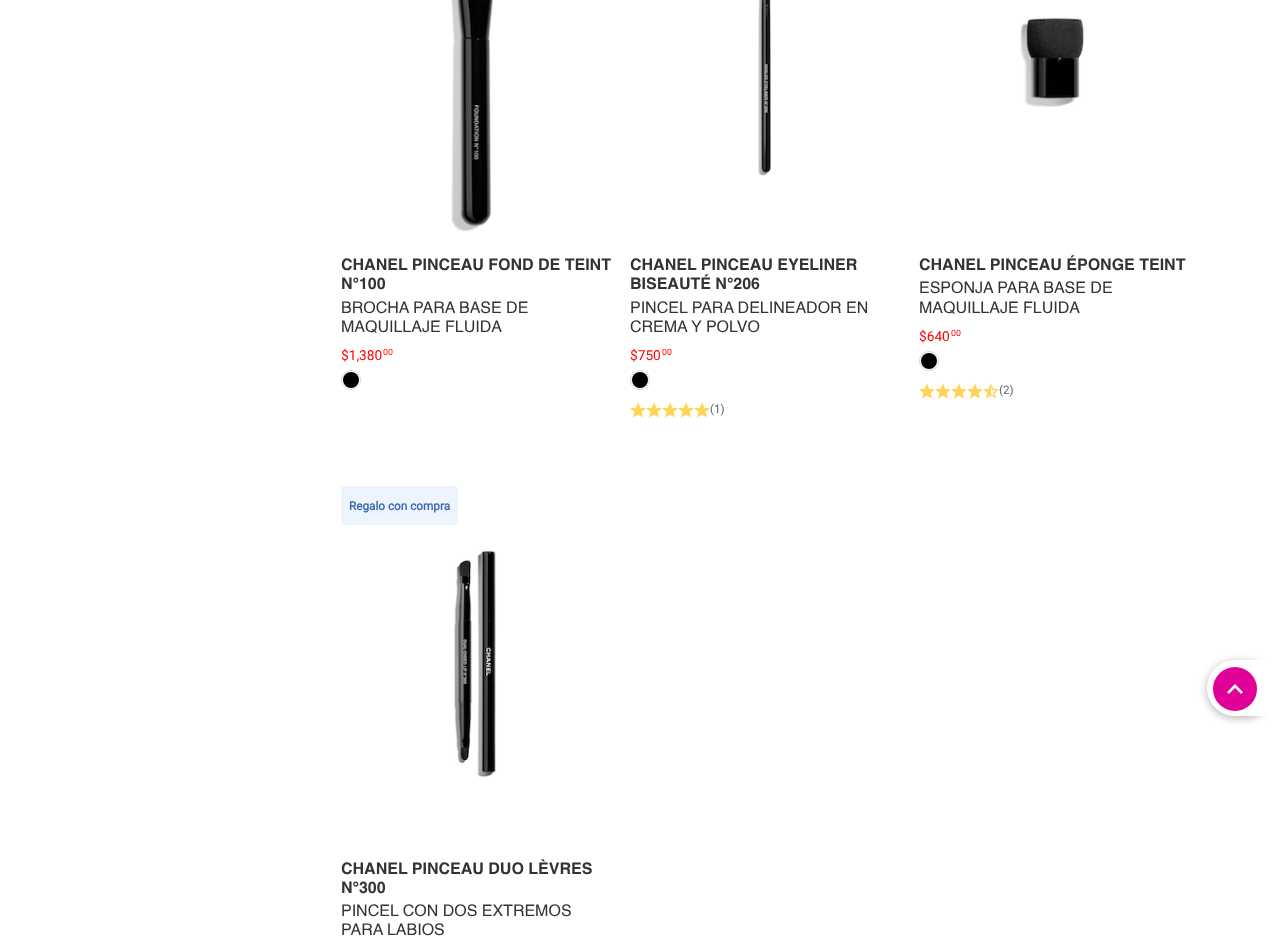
<svg xmlns="http://www.w3.org/2000/svg" width="1273" height="943" viewBox="0 0 1273 943">
  <defs>
    <filter id="blur1" x="-50%" y="-200%" width="200%" height="500%"><feGaussianBlur stdDeviation="4"/></filter>
  </defs>
  <rect width="100%" height="100%" fill="#ffffff"/>
  <image x="451" y="0" width="43" height="232" href="img1.png"/>
  <text x="341" y="270" font-family="Helvetica" font-size="16" font-weight="bold" fill="#333333">CHANEL PINCEAU FOND DE TEINT</text>
  <text x="341" y="289" font-family="Helvetica" font-size="16" font-weight="bold" fill="#333333">N°100</text>
  <text x="341" y="313" font-family="Helvetica" font-size="16" fill="#333333">BROCHA PARA BASE DE</text>
  <text x="341" y="332" font-family="Helvetica" font-size="16" fill="#333333">MAQUILLAJE FLUIDA</text>
  <text x="341" y="360" font-family="Roboto" font-size="14" fill="#ff0000">$1,380</text>
  <text x="383" y="355" font-family="Roboto" font-size="9" fill="#ff0000">00</text>
  <circle cx="351" cy="380" r="9.5" fill="none" stroke="#d8d8d8"/>
  <circle cx="351" cy="380" r="8" fill="#000000"/>
  <image x="758" y="0" width="14" height="176" href="img2.png"/>
  <text x="630" y="270" font-family="Helvetica" font-size="16" font-weight="bold" fill="#333333">CHANEL PINCEAU EYELINER</text>
  <text x="630" y="289" font-family="Helvetica" font-size="16" font-weight="bold" fill="#333333">BISEAUTÉ N°206</text>
  <text x="630" y="313" font-family="Helvetica" font-size="16" fill="#333333">PINCEL PARA DELINEADOR EN</text>
  <text x="630" y="332" font-family="Helvetica" font-size="16" fill="#333333">CREMA Y POLVO</text>
  <text x="630" y="360" font-family="Roboto" font-size="14" fill="#ff0000">$750</text>
  <text x="662" y="355" font-family="Roboto" font-size="9" fill="#ff0000">00</text>
  <circle cx="640" cy="380" r="9.5" fill="none" stroke="#d8d8d8"/>
  <circle cx="640" cy="380" r="8" fill="#000000"/>
  <image x="630" y="402" width="16" height="16" href="img3.png"/>
  <image x="646" y="402" width="16" height="16" href="img3.png"/>
  <image x="662" y="402" width="16" height="16" href="img3.png"/>
  <image x="678" y="402" width="16" height="16" href="img3.png"/>
  <image x="694" y="402" width="16" height="16" href="img3.png"/>
  <text x="710" y="413" font-family="Roboto" font-size="12" fill="#666666">(1)</text>
  <image x="1020" y="16" width="64" height="91" href="img4.png"/>
  <text x="919" y="270" font-family="Helvetica" font-size="16" font-weight="bold" fill="#333333">CHANEL PINCEAU ÉPONGE TEINT</text>
  <text x="919" y="293" font-family="Helvetica" font-size="16" fill="#333333">ESPONJA PARA BASE DE</text>
  <text x="919" y="313" font-family="Helvetica" font-size="16" fill="#333333">MAQUILLAJE FLUIDA</text>
  <text x="919" y="341" font-family="Roboto" font-size="14" fill="#ff0000">$640</text>
  <text x="951" y="336" font-family="Roboto" font-size="9" fill="#ff0000">00</text>
  <circle cx="929" cy="361" r="9.5" fill="none" stroke="#d8d8d8"/>
  <circle cx="929" cy="361" r="8" fill="#000000"/>
  <image x="919" y="383" width="16" height="16" href="img3.png"/>
  <image x="935" y="383" width="16" height="16" href="img3.png"/>
  <image x="951" y="383" width="16" height="16" href="img3.png"/>
  <image x="967" y="383" width="16" height="16" href="img3.png"/>
  <image x="983" y="383" width="16" height="16" href="img5.png"/>
  <text x="999" y="394" font-family="Roboto" font-size="12" fill="#666666">(2)</text>
  <rect x="341" y="486" width="117" height="39" rx="4" fill="#eef4fe"/>
  <text x="349" y="510" font-family="Roboto" font-size="12" font-weight="bold" fill="#3c68b0">Regalo con compra</text>
  <image x="453" y="550" width="44" height="229" href="img6.png"/>
  <text x="341" y="874" font-family="Helvetica" font-size="16" font-weight="bold" fill="#333333">CHANEL PINCEAU DUO LÈVRES</text>
  <text x="341" y="893" font-family="Helvetica" font-size="16" font-weight="bold" fill="#333333">N°300</text>
  <text x="341" y="916" font-family="Helvetica" font-size="16" fill="#333333">PINCEL CON DOS EXTREMOS</text>
  <text x="341" y="935" font-family="Helvetica" font-size="16" fill="#333333">PARA LABIOS</text>
  <rect x="1207" y="662" width="66" height="56" rx="28" fill="#000000" fill-opacity="0.3" filter="url(#blur1)"/>
  <path d="M1235 660H1273V716H1235C1219.5 716 1207 703.5 1207 688C1207 672.5 1219.5 660 1235 660Z" fill="#ffffff"/>
  <circle cx="1235" cy="689" r="22" fill="#e10098"/>
  <image x="1227" y="684" width="16" height="10" href="img7.png"/>
</svg>
